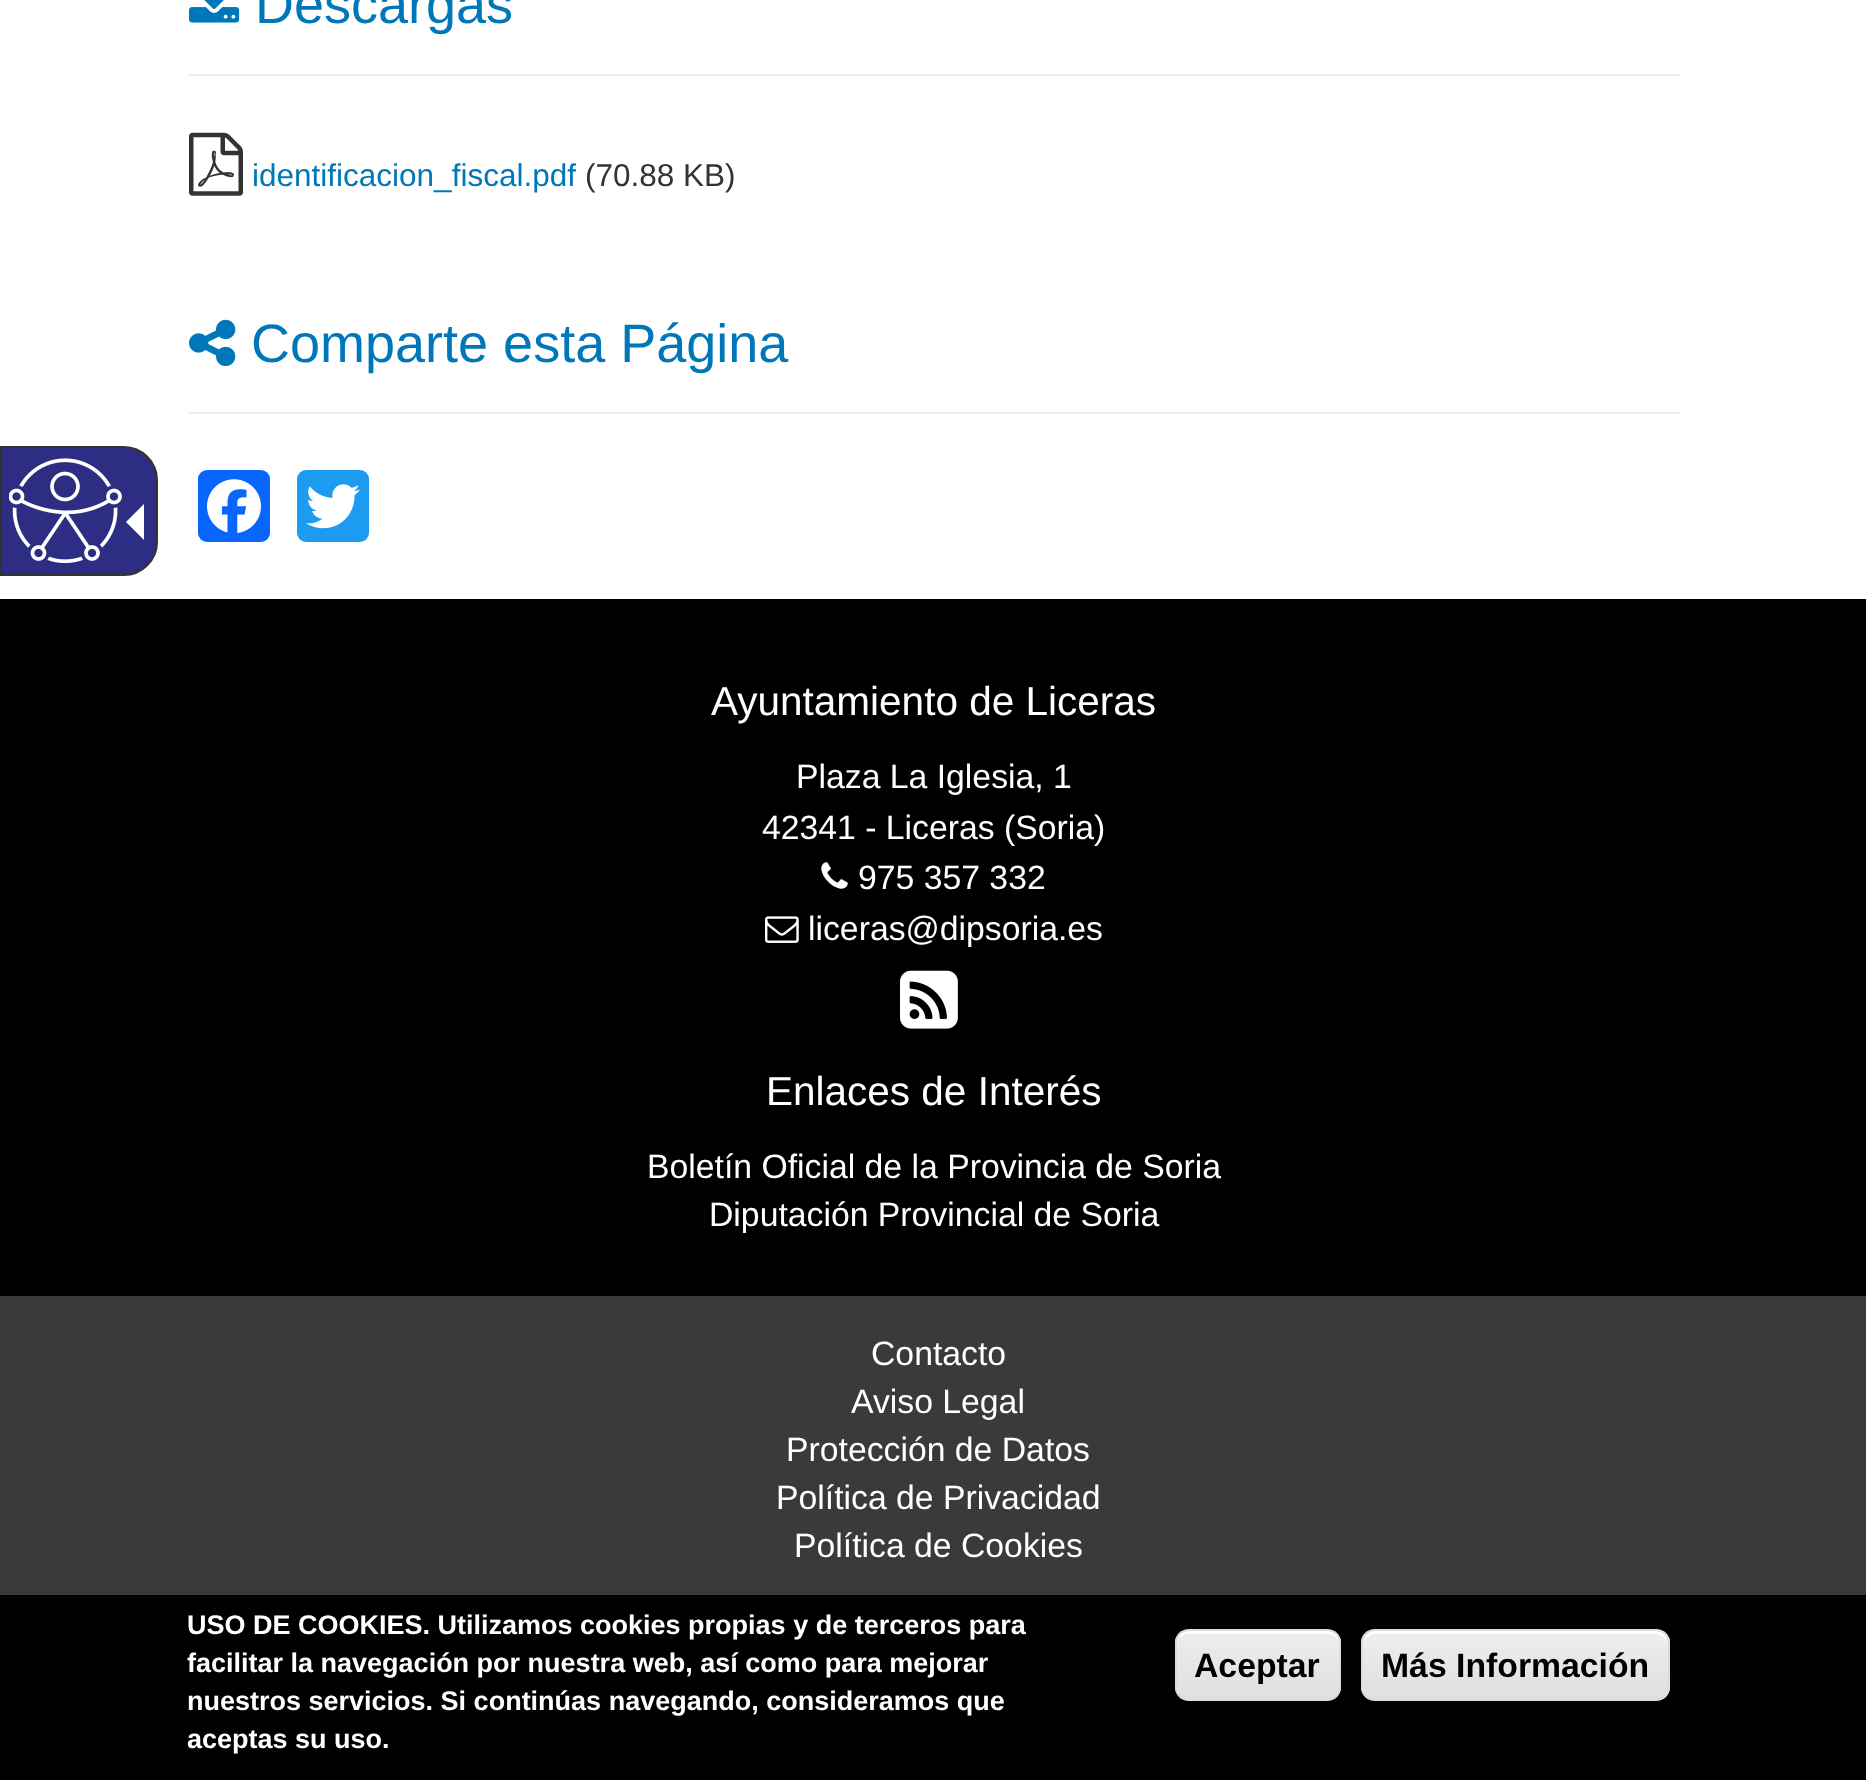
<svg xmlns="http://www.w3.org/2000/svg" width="1866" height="1780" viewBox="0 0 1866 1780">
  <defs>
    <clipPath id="clip1"><rect x="1175" y="1629" width="166" height="72" rx="14"/></clipPath>
    <linearGradient id="g1" gradientUnits="userSpaceOnUse" x1="1258" y1="1631" x2="1258" y2="1699"><stop offset="0.05" stop-color="#ededed"/><stop offset="1" stop-color="#dfdfdf"/></linearGradient>
    <clipPath id="clip2"><rect x="1361" y="1629" width="309" height="72" rx="14"/></clipPath>
    <linearGradient id="g2" gradientUnits="userSpaceOnUse" x1="1515" y1="1631" x2="1515" y2="1699"><stop offset="0.05" stop-color="#ededed"/><stop offset="1" stop-color="#dfdfdf"/></linearGradient>
  </defs>
  <rect width="100%" height="100%" fill="#ffffff"/>
  <rect x="189" y="74" width="1490" height="2" fill="#eeeeee"/>
  <image x="189" y="0" width="51" height="23" href="img1.png"/>
  <text x="255" y="23" font-family="Liberation Sans" font-size="54" fill="#0077b9">Descargas</text>
  <image x="189" y="132" width="54" height="64" href="img2.png"/>
  <text x="252" y="186" font-family="Liberation Sans" font-size="31.5" fill="#0077b9">identificacion_fiscal.pdf</text>
  <text x="585" y="186" font-family="Liberation Sans" font-size="31.5" fill="#333333">(70.88 KB)</text>
  <rect x="189" y="412" width="1490" height="2" fill="#eeeeee"/>
  <image x="189" y="319" width="47" height="48" href="img3.png"/>
  <text x="251" y="362" font-family="Liberation Sans" font-size="54" fill="#0077b9">Comparte esta Página</text>
  <rect x="198" y="470" width="72" height="72" rx="9" fill="#0866ff"/>
  <image x="207" y="479" width="54" height="54" href="img4.png"/>
  <rect x="297" y="470" width="72" height="72" rx="9" fill="#1d9bf0"/>
  <image x="306" y="484" width="54" height="45" href="img5.png"/>
  <path d="M1 447H124C142 447 157 462 157 480V542C157 560 142 575 124 575H1Z" fill="#2d2e83" stroke="#333333" stroke-width="2"/>
  <image x="9" y="458" width="113" height="106" href="img6.png"/>
  <path d="M144 504V540L126 522Z" fill="#ffffff"/>
  <rect x="0" y="599" width="1866" height="697" fill="#000000"/>
  <text x="711" y="715" font-family="Liberation Sans" font-size="40.5" fill="#ffffff">Ayuntamiento de Liceras</text>
  <text x="796" y="788" font-family="Liberation Sans" font-size="33.75" fill="#ffffff">Plaza La Iglesia, 1</text>
  <text x="762" y="839" font-family="Liberation Sans" font-size="33.75" fill="#ffffff">42341 - Liceras (Soria)</text>
  <image x="821" y="862" width="27" height="27" href="img7.png"/>
  <text x="858" y="889" font-family="Liberation Sans" font-size="33.75" fill="#ffffff">975 357 332</text>
  <image x="765" y="916" width="34" height="27" href="img8.png"/>
  <text x="808" y="940" font-family="Liberation Sans" font-size="33.75" fill="#ffffff">liceras@dipsoria.es</text>
  <image x="900" y="970" width="58" height="59" href="img9.png"/>
  <text x="766" y="1105" font-family="Liberation Sans" font-size="40.5" fill="#ffffff">Enlaces de Interés</text>
  <text x="647" y="1178" font-family="Liberation Sans" font-size="33.75" fill="#ffffff">Boletín Oficial de la Provincia de Soria</text>
  <text x="709" y="1226" font-family="Liberation Sans" font-size="33.75" fill="#ffffff">Diputación Provincial de Soria</text>
  <rect x="0" y="1296" width="1866" height="299" fill="#3a3a3a"/>
  <text x="871" y="1365" font-family="Liberation Sans" font-size="33.75" fill="#ffffff">Contacto</text>
  <text x="851" y="1413" font-family="Liberation Sans" font-size="33.75" fill="#ffffff">Aviso Legal</text>
  <text x="786" y="1461" font-family="Liberation Sans" font-size="33.75" fill="#ffffff">Protección de Datos</text>
  <text x="776" y="1509" font-family="Liberation Sans" font-size="33.75" fill="#ffffff">Política de Privacidad</text>
  <text x="794" y="1557" font-family="Liberation Sans" font-size="33.75" fill="#ffffff">Política de Cookies</text>
  <rect x="0" y="1595" width="1866" height="185" fill="#000000"/>
  <text x="187" y="1634" font-family="Liberation Sans" font-size="27" font-weight="bold" fill="#ffffff">USO DE COOKIES. Utilizamos cookies propias y de terceros para</text>
  <text x="187" y="1672" font-family="Liberation Sans" font-size="27" font-weight="bold" fill="#ffffff">facilitar la navegación por nuestra web, así como para mejorar</text>
  <text x="187" y="1710" font-family="Liberation Sans" font-size="27" font-weight="bold" fill="#ffffff">nuestros servicios. Si continúas navegando, consideramos que</text>
  <text x="187" y="1748" font-family="Liberation Sans" font-size="27" font-weight="bold" fill="#ffffff">aceptas su uso.</text>
  <g clip-path="url(#clip1)">
    <rect x="1175" y="1631" width="166" height="68" fill="url(#g1)"/>
  </g>
  <path d="M1188 1634H1328C1334 1634 1339 1639 1339 1645V1642C1339 1636 1334 1631 1328 1631H1188C1182 1631 1177 1636 1177 1642V1645C1177 1639 1182 1634 1188 1634Z" fill="#ffffff"/>
  <rect x="1176" y="1630" width="164" height="70" rx="13" fill="none" stroke="#dcdcdc" stroke-width="2"/>
  <text x="1194" y="1677" font-family="Liberation Sans" font-size="33.75" font-weight="bold" fill="#000000">Aceptar</text>
  <g clip-path="url(#clip2)">
    <rect x="1361" y="1631" width="309" height="68" fill="url(#g2)"/>
  </g>
  <path d="M1375 1634H1656C1662 1634 1667 1639 1667 1645V1642C1667 1636 1662 1631 1656 1631H1375C1369 1631 1364 1636 1364 1642V1645C1364 1639 1369 1634 1375 1634Z" fill="#ffffff"/>
  <rect x="1362" y="1630" width="307" height="70" rx="13" fill="none" stroke="#dcdcdc" stroke-width="2"/>
  <text x="1381" y="1677" font-family="Liberation Sans" font-size="33.75" font-weight="bold" fill="#000000">Más Información</text>
</svg>
